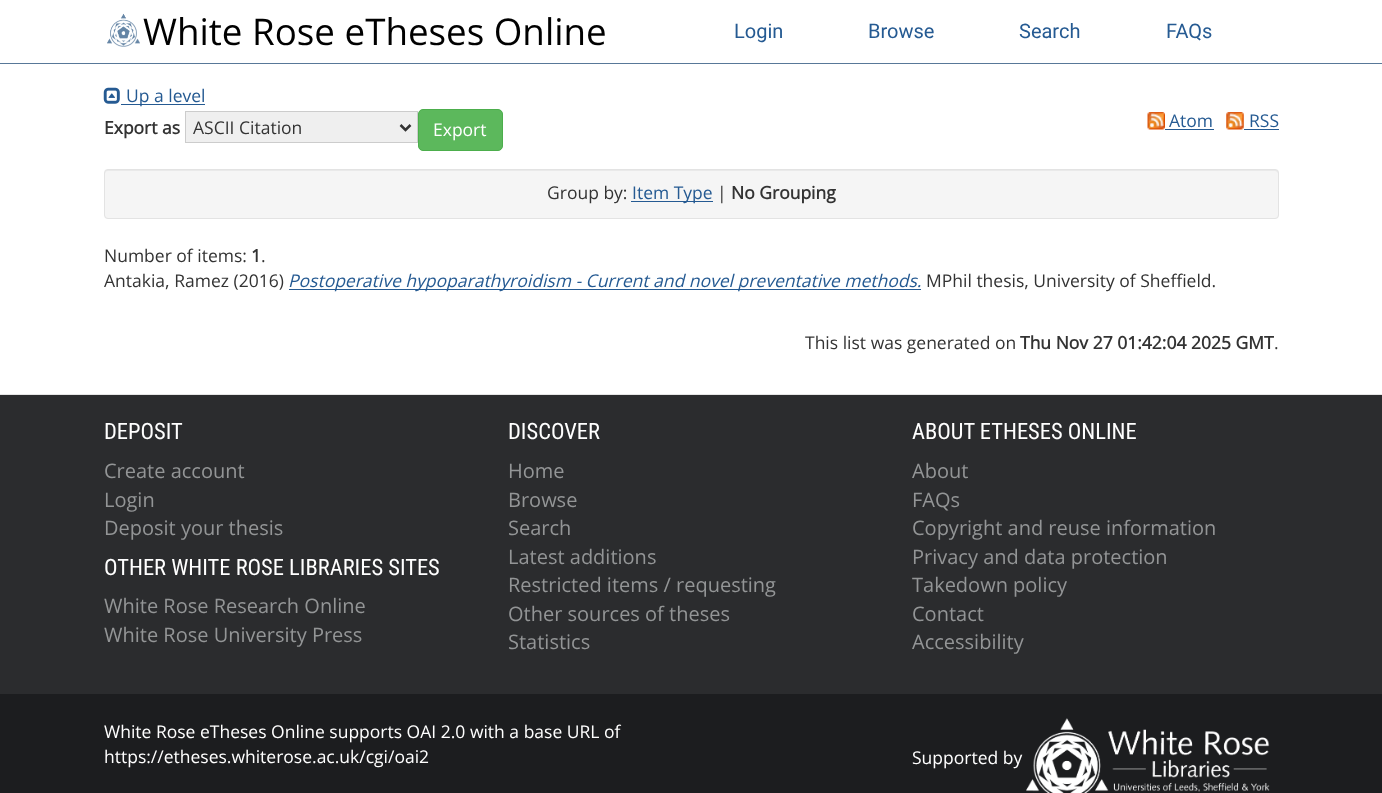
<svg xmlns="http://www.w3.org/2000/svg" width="1382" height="793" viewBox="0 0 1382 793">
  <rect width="100%" height="100%" fill="#ffffff"/>
  <rect x="0" y="63" width="1382" height="1" fill="#587898"/>
  <image x="107" y="13" width="33" height="34" href="img1.png"/>
  <text x="143" y="45" font-family="Open Sans" font-size="36.75" fill="#000000">White Rose eTheses Online</text>
  <text x="734" y="38" font-family="Roboto" font-size="20" fill="#255a92">Login</text>
  <text x="868" y="38" font-family="Roboto" font-size="20" fill="#255a92">Browse</text>
  <text x="1019" y="38" font-family="Roboto" font-size="20" fill="#255a92">Search</text>
  <text x="1166" y="38" font-family="Roboto" font-size="20" fill="#255a92">FAQs</text>
  <image x="103" y="87" width="17" height="17" href="img2.png"/>
  <rect x="121" y="104" width="84" height="1" fill="#255a92"/>
  <text x="126" y="102" font-family="Open Sans" font-size="17.5" fill="#255a92">Up a level</text>
  <text x="104" y="134" font-family="Open Sans" font-size="17.5" font-weight="bold" fill="#333333">Export as</text>
  <rect x="185.5" y="111.5" width="232" height="31" fill="#efefef" stroke="#cccccc"/>
  <path d="M400.5 125L405.5 130L410.5 125" fill="none" stroke="#333333" stroke-width="2.5"/>
  <text x="193" y="134" font-family="Open Sans" font-size="17.5" fill="#333333">ASCII Citation</text>
  <rect x="418.5" y="109.5" width="84" height="41" rx="4.5" fill="#5cb85c" stroke="#4cae4c"/>
  <text x="433" y="136" font-family="Open Sans" font-size="17.5" fill="#ffffff">Export</text>
  <image x="1147" y="112" width="18" height="18" href="img3.png"/>
  <text x="1169" y="127" font-family="Open Sans" font-size="17.5" fill="#255a92">Atom</text>
  <rect x="1165" y="129" width="49" height="1" fill="#255a92"/>
  <image x="1226" y="112" width="18" height="18" href="img4.png"/>
  <text x="1249" y="127" font-family="Open Sans" font-size="17.5" fill="#255a92">RSS</text>
  <rect x="1244" y="129" width="35" height="1" fill="#255a92"/>
  <rect x="104" y="169" width="1175" height="50" rx="4" fill="#f5f5f5"/>
  <path d="M108 171H1275C1276 171 1278 172 1278 174C1278 172 1278 170 1276 170H108C105 170 105 172 105 174C105 172 106 171 108 171Z" fill="#e9e9e9"/>
  <rect x="104.5" y="169.5" width="1174" height="49" rx="3.5" fill="none" stroke="#e3e3e3"/>
  <text x="547" y="199" font-family="Open Sans" font-size="17.5" fill="#333333">Group by:</text>
  <rect x="631" y="201" width="82" height="1" fill="#255a92"/>
  <text x="632" y="199" font-family="Open Sans" font-size="17.5" fill="#255a92">Item Type</text>
  <text x="717" y="199" font-family="Open Sans" font-size="17.5" fill="#333333">|</text>
  <text x="731" y="199" font-family="Open Sans" font-size="17.5" font-weight="bold" fill="#333333">No Grouping</text>
  <text x="104" y="262" font-family="Open Sans" font-size="17.5" fill="#333333">Number of items:</text>
  <text x="251" y="262" font-family="Open Sans" font-size="17.5" font-weight="bold" fill="#333333">1</text>
  <text x="261" y="262" font-family="Open Sans" font-size="17.5" fill="#333333">.</text>
  <text x="104" y="287" font-family="Open Sans" font-size="17.5" fill="#333333">Antakia, Ramez (2016)</text>
  <rect x="289" y="289" width="632" height="1" fill="#255a92"/>
  <text x="288" y="287" font-family="Open Sans" font-size="17.5" font-style="italic" fill="#255a92">Postoperative hypoparathyroidism - Current and novel preventative methods.</text>
  <text x="926" y="287" font-family="Open Sans" font-size="17.5" fill="#333333">MPhil thesis, University of Sheffield.</text>
  <text x="805" y="349" font-family="Open Sans" font-size="17.5" fill="#333333">This list was generated on</text>
  <text x="1020" y="349" font-family="Open Sans" font-size="17.5" font-weight="bold" fill="#333333">Thu Nov 27 01:42:04 2025 GMT</text>
  <text x="1274" y="349" font-family="Open Sans" font-size="17.5" fill="#333333">.</text>
  <rect x="0" y="394" width="1382" height="1" fill="#e5e5e5"/>
  <rect x="0" y="395" width="1382" height="299" fill="#2b2c2e"/>
  <text x="104" y="439" font-family="Roboto Condensed" font-size="22.5" fill="#ffffff">DEPOSIT</text>
  <text x="104" y="478" font-family="Open Sans" font-size="20" fill="#939596">Create account</text>
  <text x="104" y="507" font-family="Open Sans" font-size="20" fill="#939596">Login</text>
  <text x="104" y="535" font-family="Open Sans" font-size="20" fill="#939596">Deposit your thesis</text>
  <text x="104" y="575" font-family="Roboto Condensed" font-size="22.5" fill="#ffffff">OTHER WHITE ROSE LIBRARIES SITES</text>
  <text x="104" y="613" font-family="Open Sans" font-size="20" fill="#939596">White Rose Research Online</text>
  <text x="104" y="642" font-family="Open Sans" font-size="20" fill="#939596">White Rose University Press</text>
  <text x="508" y="439" font-family="Roboto Condensed" font-size="22.5" fill="#ffffff">DISCOVER</text>
  <text x="508" y="478" font-family="Open Sans" font-size="20" fill="#939596">Home</text>
  <text x="508" y="507" font-family="Open Sans" font-size="20" fill="#939596">Browse</text>
  <text x="508" y="535" font-family="Open Sans" font-size="20" fill="#939596">Search</text>
  <text x="508" y="564" font-family="Open Sans" font-size="20" fill="#939596">Latest additions</text>
  <text x="508" y="592" font-family="Open Sans" font-size="20" fill="#939596">Restricted items / requesting</text>
  <text x="508" y="621" font-family="Open Sans" font-size="20" fill="#939596">Other sources of theses</text>
  <text x="508" y="649" font-family="Open Sans" font-size="20" fill="#939596">Statistics</text>
  <text x="912" y="439" font-family="Roboto Condensed" font-size="22.5" fill="#ffffff">ABOUT ETHESES ONLINE</text>
  <text x="912" y="478" font-family="Open Sans" font-size="20" fill="#939596">About</text>
  <text x="912" y="507" font-family="Open Sans" font-size="20" fill="#939596">FAQs</text>
  <text x="912" y="535" font-family="Open Sans" font-size="20" fill="#939596">Copyright and reuse information</text>
  <text x="912" y="564" font-family="Open Sans" font-size="20" fill="#939596">Privacy and data protection</text>
  <text x="912" y="592" font-family="Open Sans" font-size="20" fill="#939596">Takedown policy</text>
  <text x="912" y="621" font-family="Open Sans" font-size="20" fill="#939596">Contact</text>
  <text x="912" y="649" font-family="Open Sans" font-size="20" fill="#939596">Accessibility</text>
  <rect x="0" y="694" width="1382" height="99" fill="#1c1d1f"/>
  <text x="104" y="738" font-family="Open Sans" font-size="17.5" fill="#ffffff">White Rose eTheses Online supports OAI 2.0 with a base URL of</text>
  <text x="104" y="763" font-family="Open Sans" font-size="17.5" fill="#ffffff">https://etheses.whiterose.ac.uk/cgi/oai2</text>
  <text x="912" y="764" font-family="Open Sans" font-size="17.5" fill="#ffffff">Supported by</text>
  <image x="1026" y="718" width="244" height="75" href="img5.png"/>
</svg>
